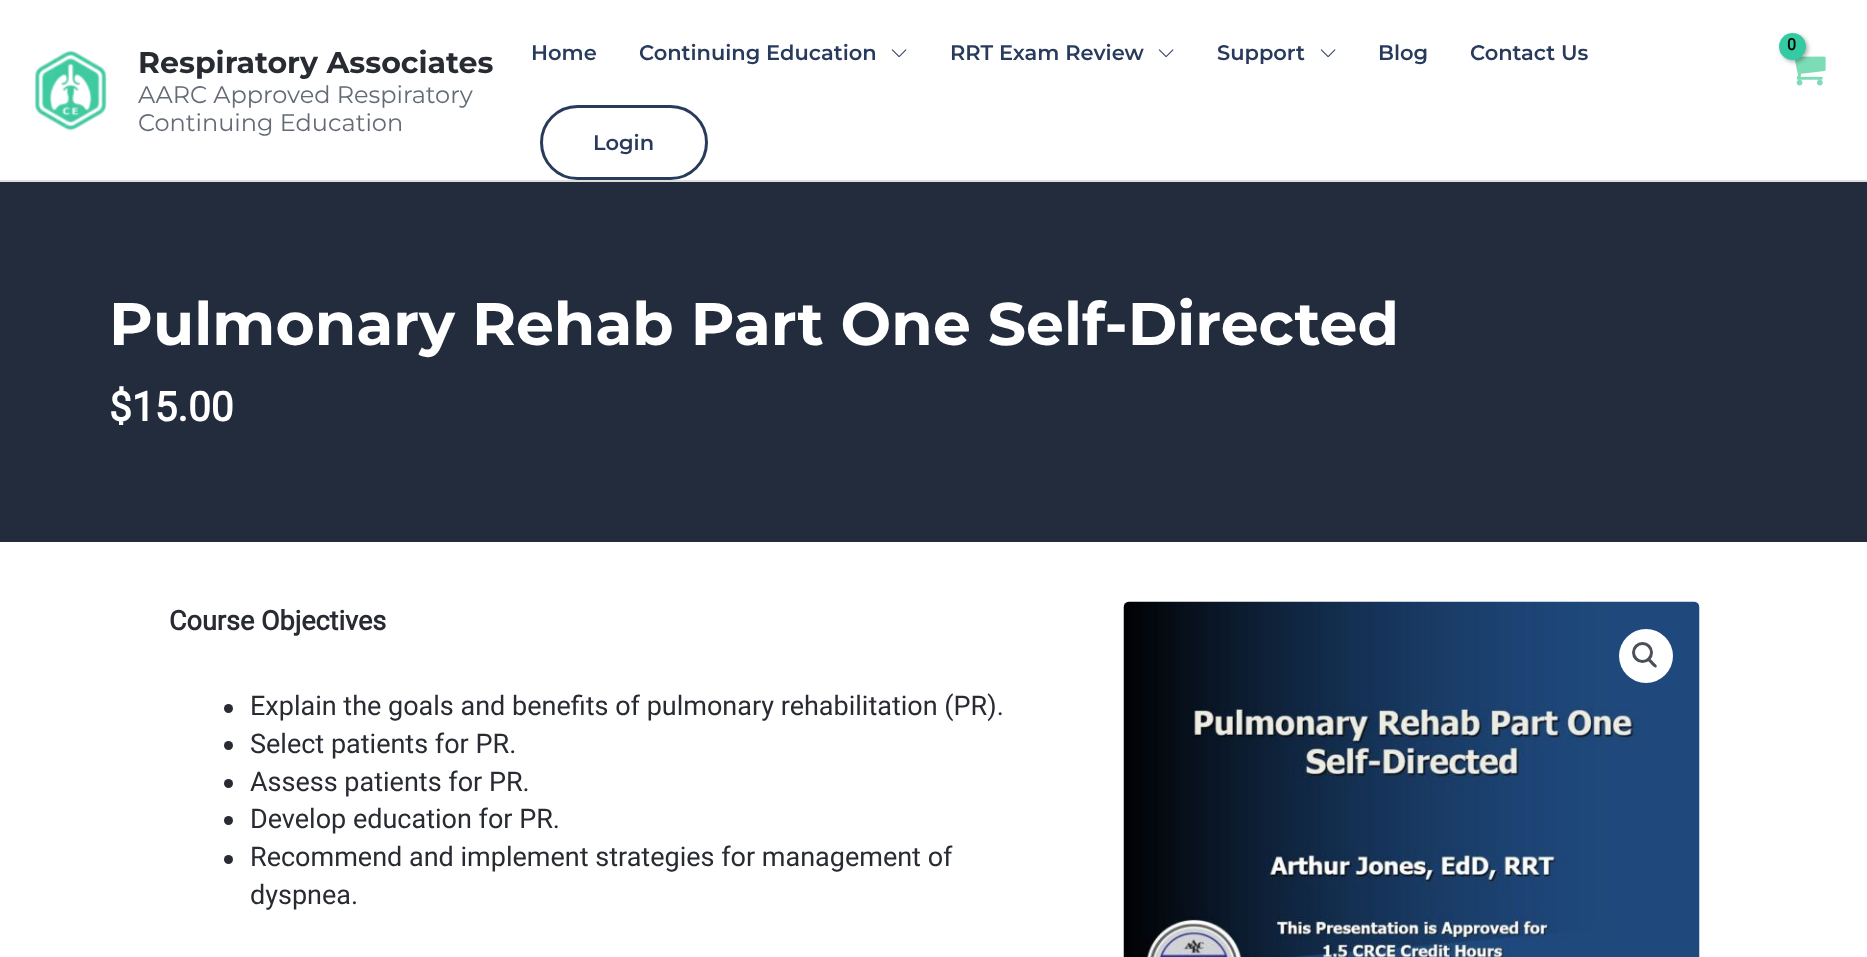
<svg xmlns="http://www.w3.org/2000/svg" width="1867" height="957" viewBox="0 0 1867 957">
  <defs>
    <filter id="blur1" x="-50%" y="-200%" width="200%" height="500%"><feGaussianBlur stdDeviation="2"/></filter>
  </defs>
  <rect width="100%" height="100%" fill="#ffffff"/>
  <rect x="0" y="180" width="1867" height="2" fill="#dddddd"/>
  <image x="34" y="50" width="73" height="81" href="img1.png"/>
  <text x="138" y="73" font-family="Montserrat" font-size="30" font-weight="100" fill="#292b33">Respiratory Associates</text>
  <text x="138" y="103" font-family="Montserrat" font-size="24" fill="#646b77">AARC Approved Respiratory</text>
  <text x="138" y="131" font-family="Montserrat" font-size="24" fill="#646b77">Continuing Education</text>
  <text x="531" y="60" font-family="Montserrat" font-size="21" font-weight="600" fill="#283b5c">Home</text>
  <text x="639" y="60" font-family="Montserrat" font-size="21" font-weight="600" fill="#283b5c">Continuing Education</text>
  <image x="891" y="49" width="16" height="9" href="img2.png"/>
  <text x="950" y="60" font-family="Montserrat" font-size="21" font-weight="600" fill="#283b5c">RRT Exam Review</text>
  <image x="1158" y="49" width="16" height="9" href="img2.png"/>
  <text x="1217" y="60" font-family="Montserrat" font-size="21" font-weight="600" fill="#283b5c">Support</text>
  <image x="1320" y="49" width="16" height="9" href="img2.png"/>
  <text x="1378" y="60" font-family="Montserrat" font-size="21" font-weight="600" fill="#283b5c">Blog</text>
  <text x="1470" y="60" font-family="Montserrat" font-size="21" font-weight="600" fill="#283b5c">Contact Us</text>
  <rect x="541.5" y="106.5" width="165" height="72" rx="36" fill="none" stroke="#283b5c" stroke-width="3"/>
  <text x="593" y="150" font-family="Montserrat" font-size="21" font-weight="600" fill="#283b5c">Login</text>
  <image x="1794" y="56" width="32" height="30" href="img3.png"/>
  <rect x="1781" y="35" width="27" height="27" rx="13.5" fill="#000000" fill-opacity="0.3" filter="url(#blur1)"/>
  <circle cx="1792.5" cy="46.5" r="13.5" fill="#34cba2"/>
  <text x="1787" y="50" font-family="Roboto" font-size="16" font-weight="bold" letter-spacing="-1" fill="#000000">0</text>
  <rect x="0" y="182" width="1867" height="360" fill="#222c3d"/>
  <text x="109" y="345" font-family="Montserrat" font-size="60" font-weight="100" fill="#ffffff">Pulmonary Rehab Part One Self-Directed</text>
  <text x="109" y="421" font-family="Roboto" font-size="40.5" font-weight="bold" fill="#ffffff">$15.00</text>
  <text x="169" y="630" font-family="Roboto" font-size="27" font-weight="bold" fill="#292b33">Course Objectives</text>
  <circle cx="228.5" cy="708.5" r="4.5" fill="#292b33"/>
  <text x="250" y="715" font-family="Roboto" font-size="27" fill="#292b33">Explain the goals and benefits of pulmonary rehabilitation (PR).</text>
  <circle cx="228.5" cy="745.5" r="4.5" fill="#292b33"/>
  <text x="250" y="753" font-family="Roboto" font-size="27" fill="#292b33">Select patients for PR.</text>
  <circle cx="228.5" cy="783.5" r="4.5" fill="#292b33"/>
  <text x="250" y="791" font-family="Roboto" font-size="27" fill="#292b33">Assess patients for PR.</text>
  <circle cx="228.5" cy="820.5" r="4.5" fill="#292b33"/>
  <text x="250" y="828" font-family="Roboto" font-size="27" fill="#292b33">Develop education for PR.</text>
  <circle cx="228.5" cy="859.5" r="4.5" fill="#292b33"/>
  <text x="250" y="866" font-family="Roboto" font-size="27" fill="#292b33">Recommend and implement strategies for management of</text>
  <text x="250" y="904" font-family="Roboto" font-size="27" fill="#292b33">dyspnea.</text>
  <image x="1123" y="601" width="577" height="356" href="img4.png"/>
  <circle cx="1646" cy="656" r="27" fill="#ffffff"/>
  <circle cx="1642.5" cy="652.5" r="9" fill="none" stroke="#4b4f58" stroke-width="3"/>
  <path d="M1648 659C1649.5 657 1652.5 661 1653.5 662C1654 663 1658 665.5 1656.5 667C1655 669 1652 665 1651 664C1650.5 663 1646.5 660.5 1648 659Z" fill="#4b4f58"/>
</svg>
